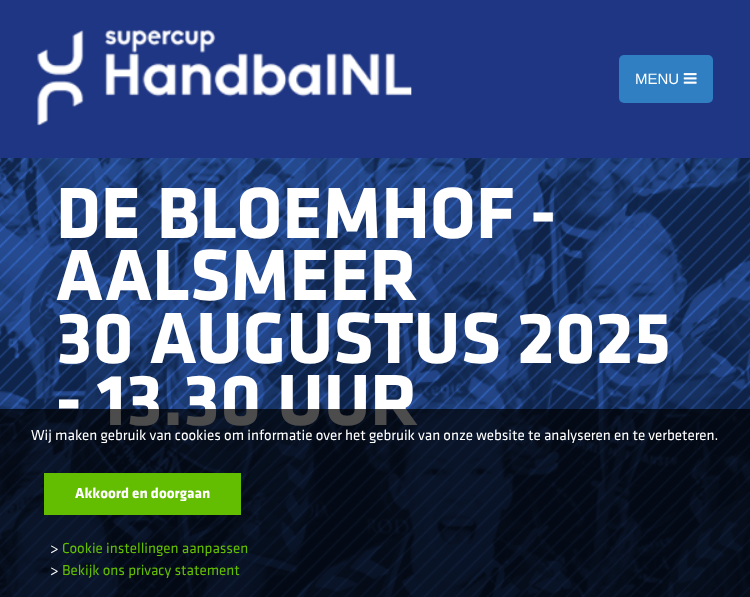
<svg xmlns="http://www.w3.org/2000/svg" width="750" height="597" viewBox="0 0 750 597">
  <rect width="100%" height="100%" fill="#ffffff"/>
  <rect x="0" y="0" width="750" height="158" fill="#1f3685"/>
  <image x="37" y="29" width="375" height="97" href="img1.png"/>
  <rect x="619" y="55" width="94" height="48" rx="5" fill="#307fc2"/>
  <text x="635" y="84" font-family="Liberation Sans" font-size="15" fill="#ffffff">MENU</text>
  <image x="683" y="73" width="14" height="11" href="img2.png"/>
  <image x="0" y="158" width="750" height="439" href="img3.png"/>
  <text x="56" y="238" font-family="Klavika" font-size="75" font-weight="bold" fill="#ffffff">DE BLOEMHOF -</text>
  <text x="56" y="300" font-family="Klavika" font-size="75" font-weight="bold" fill="#ffffff">AALSMEER</text>
  <text x="56" y="363" font-family="Klavika" font-size="75" font-weight="bold" fill="#ffffff">30 AUGUSTUS 2025</text>
  <text x="56" y="425" font-family="Klavika" font-size="75" font-weight="bold" fill="#ffffff">- 13.30 UUR</text>
  <rect x="0" y="409" width="750" height="188" fill="#000000" fill-opacity="0.7"/>
  <text x="31" y="440" font-family="Klavika" font-size="15" fill="#ffffff">Wij maken gebruik van cookies om informatie over het gebruik van onze website te analyseren en te verbeteren.</text>
  <rect x="44" y="473" width="197" height="42" fill="#63bd00"/>
  <text x="75" y="498" font-family="Klavika" font-size="15" font-weight="bold" fill="#ffffff">Akkoord en doorgaan</text>
  <text x="50" y="553" font-family="Klavika" font-size="15" fill="#ffffff">&gt;</text>
  <text x="62" y="553" font-family="Klavika" font-size="15" fill="#63bd00">Cookie instellingen aanpassen</text>
  <text x="50" y="575" font-family="Klavika" font-size="15" fill="#ffffff">&gt;</text>
  <text x="62" y="575" font-family="Klavika" font-size="15" fill="#63bd00">Bekijk ons privacy statement</text>
</svg>
